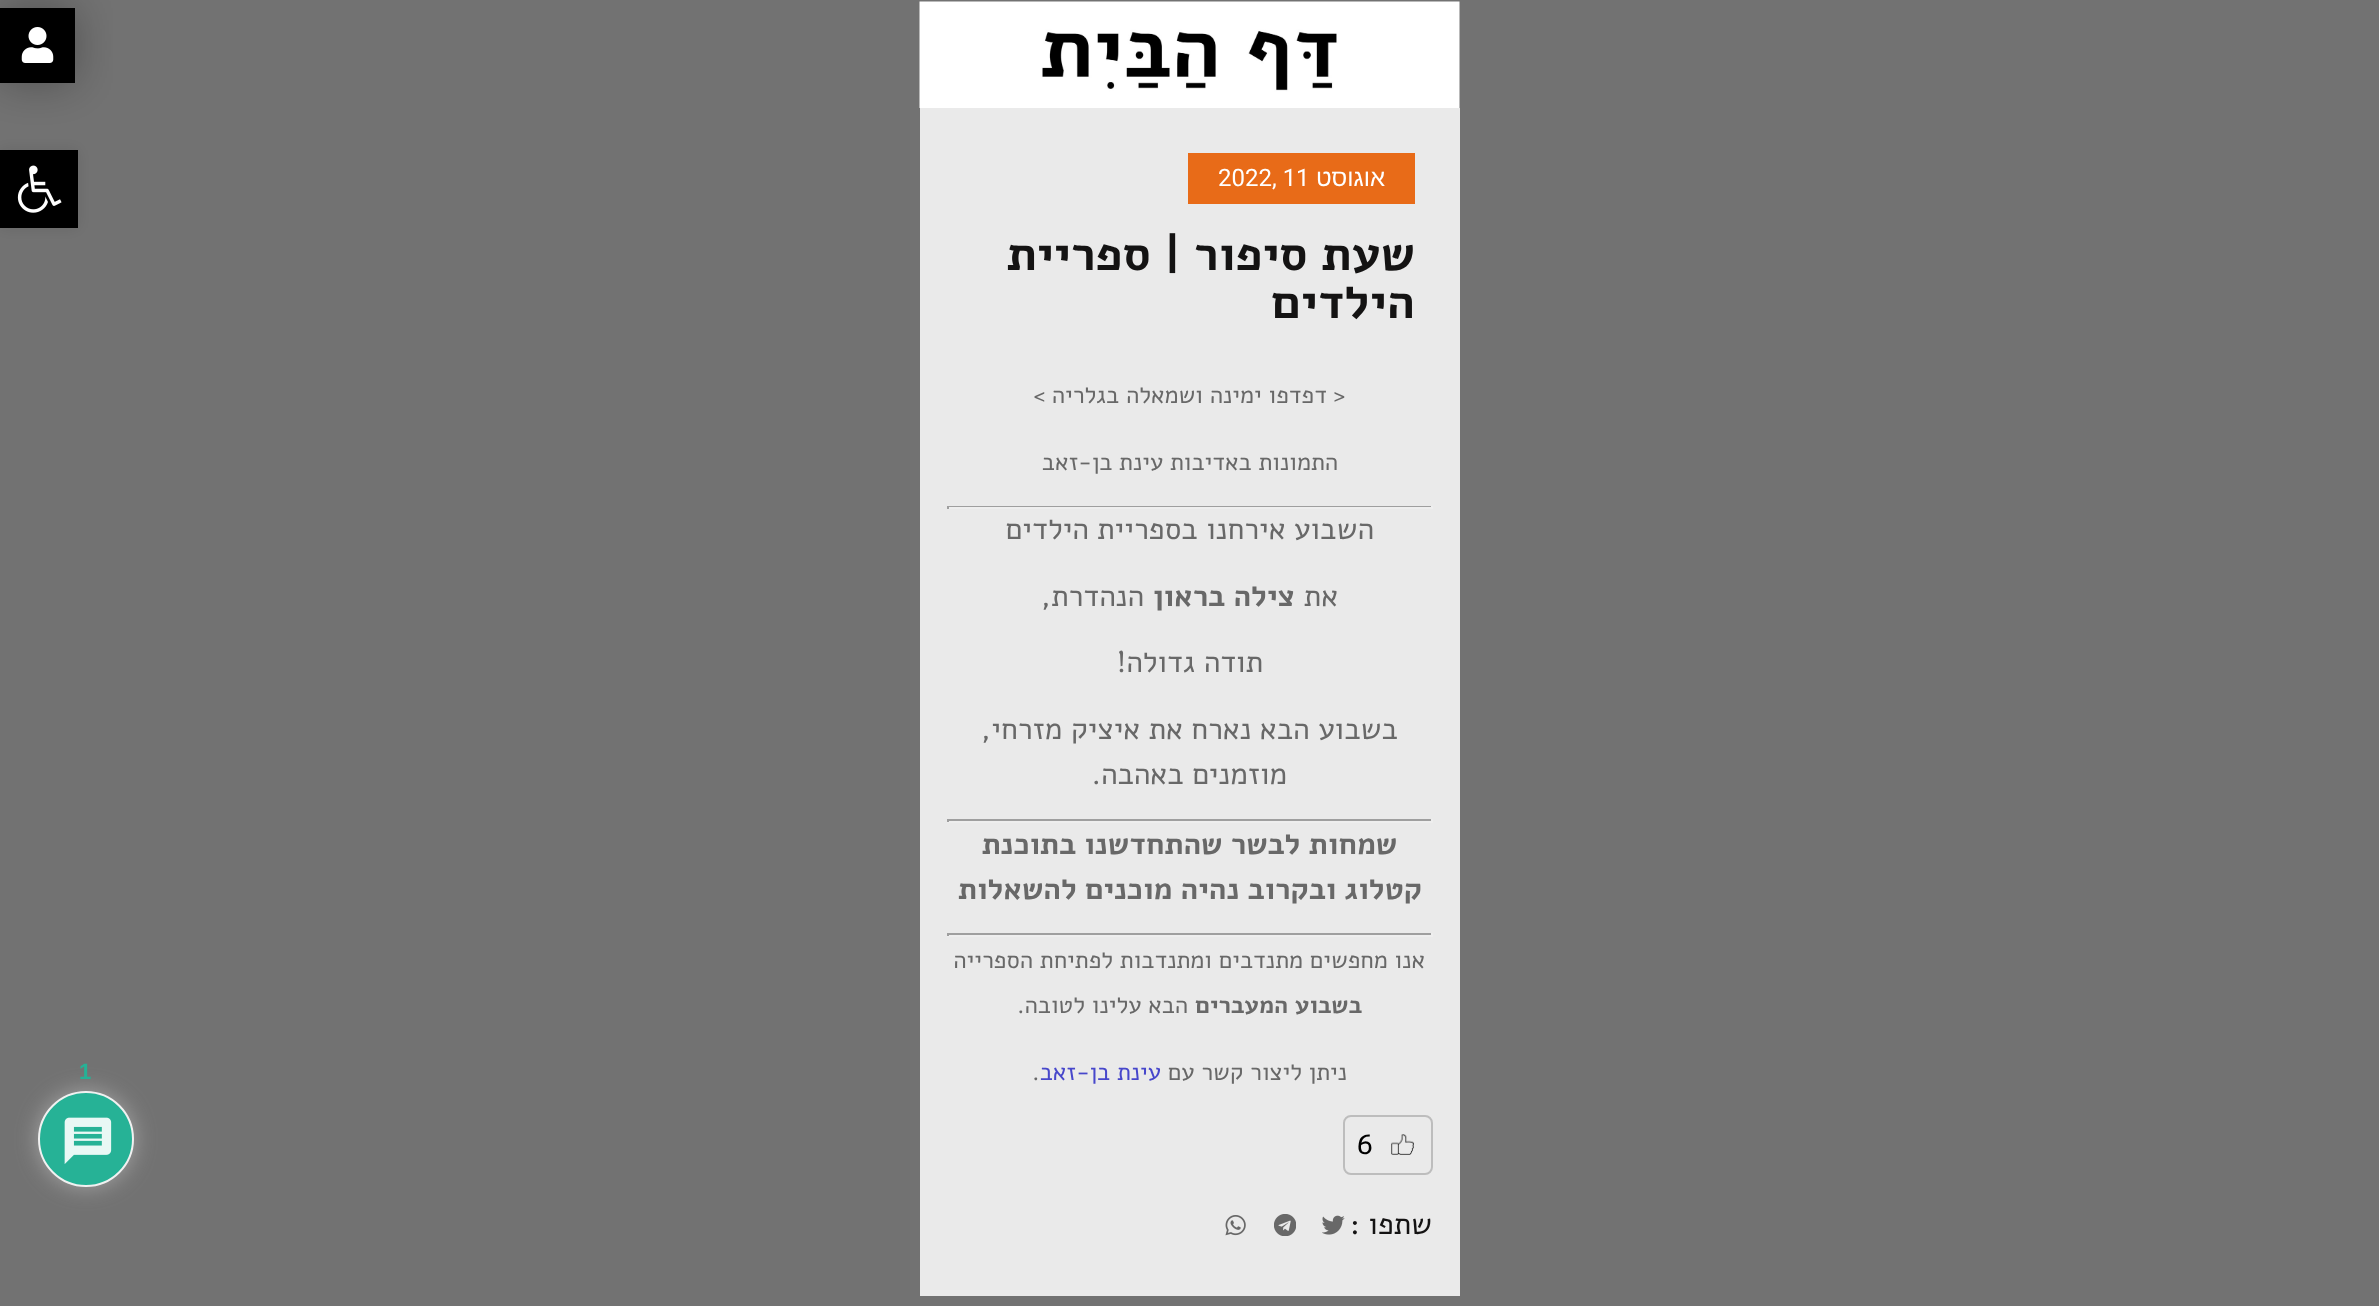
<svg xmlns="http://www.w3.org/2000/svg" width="2379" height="1306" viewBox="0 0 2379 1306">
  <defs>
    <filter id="blur1" x="-50%" y="-200%" width="200%" height="500%"><feGaussianBlur stdDeviation="22.5"/></filter>
    <filter id="blur2" x="-50%" y="-200%" width="200%" height="500%"><feGaussianBlur stdDeviation="7.5"/></filter>
    <filter id="blur3" x="-50%" y="-200%" width="200%" height="500%"><feGaussianBlur stdDeviation="11"/></filter>
  </defs>
  <rect width="100%" height="100%" fill="#727272"/>
  <image x="919" y="1" width="541" height="107" href="img1.png"/>
  <rect x="0" y="8" width="75" height="75" fill="#000000" fill-opacity="0.3" filter="url(#blur1)"/>
  <rect x="0" y="8" width="75" height="75" fill="#000000"/>
  <image x="21" y="27" width="33" height="36" href="img2.png"/>
  <rect x="920" y="108" width="540" height="1188" fill="#eaeaea"/>
  <rect x="1188" y="153" width="227" height="51" fill="#e86b18"/>
  <text x="1385" y="186" font-family="Liberation Sans" font-size="24" direction="rtl" fill="#ffffff">אוגוסט</text>
  <text x="1218" y="186" font-family="Roboto" font-size="24" fill="#ffffff">2022, 11</text>
  <text x="1415" y="270" font-family="Alef" font-size="48" font-weight="bold" direction="rtl" fill="#141313">שעת סיפור | ספריית</text>
  <text x="1415" y="318" font-family="Alef" font-size="48" font-weight="bold" direction="rtl" fill="#141313">הילדים</text>
  <text x="1345" y="403" font-family="Alef" font-size="24" direction="rtl" fill="#686868">&lt; דפדפו ימינה ושמאלה בגלריה &gt;</text>
  <text x="1338" y="470" font-family="Alef" font-size="24" direction="rtl" fill="#686868">התמונות באדיבות עינת בן-זאב</text>
  <rect x="947" y="506" width="486" height="1" fill="#9f9f9f"/>
  <rect x="1431" y="506" width="2" height="3" fill="#eeeeee"/>
  <rect x="947" y="507" width="486" height="2" fill="#eeeeee"/>
  <rect x="947" y="506" width="2" height="3" fill="#9f9f9f"/>
  <text x="1374" y="539" font-family="Alef" font-size="30" direction="rtl" fill="#686868">השבוע אירחנו בספריית הילדים</text>
  <text x="1338" y="606" font-family="Alef" font-size="30" direction="rtl" fill="#686868">את</text>
  <text x="1295" y="606" font-family="Alef" font-size="30" font-weight="bold" direction="rtl" fill="#686868">צילה בראון</text>
  <text x="1144" y="606" font-family="Alef" font-size="30" direction="rtl" fill="#686868">הנהדרת,</text>
  <text x="1263" y="672" font-family="Alef" font-size="30" direction="rtl" fill="#686868">תודה גדולה!</text>
  <text x="1398" y="739" font-family="Alef" font-size="30" direction="rtl" fill="#686868">בשבוע הבא נארח את איציק מזרחי,</text>
  <text x="1287" y="784" font-family="Alef" font-size="30" direction="rtl" fill="#686868">מוזמנים באהבה.</text>
  <rect x="947" y="819" width="486" height="2" fill="#9f9f9f"/>
  <rect x="1431" y="819" width="2" height="3" fill="#eeeeee"/>
  <rect x="947" y="821" width="486" height="2" fill="#eeeeee"/>
  <rect x="947" y="819" width="2" height="3" fill="#9f9f9f"/>
  <text x="1397" y="854" font-family="Alef" font-size="30" font-weight="bold" direction="rtl" fill="#686868">שמחות לבשר שהתחדשנו בתוכנת</text>
  <text x="1422" y="899" font-family="Alef" font-size="30" font-weight="bold" direction="rtl" fill="#686868">קטלוג ובקרוב נהיה מוכנים להשאלות</text>
  <rect x="947" y="933" width="486" height="2" fill="#9f9f9f"/>
  <rect x="1431" y="933" width="2" height="3" fill="#eeeeee"/>
  <rect x="947" y="935" width="486" height="2" fill="#eeeeee"/>
  <rect x="947" y="933" width="2" height="3" fill="#9f9f9f"/>
  <text x="1425" y="968" font-family="Alef" font-size="24" direction="rtl" fill="#686868">אנו מחפשים מתנדבים ומתנדבות לפתיחת הספרייה</text>
  <text x="1362" y="1013" font-family="Alef" font-size="24" font-weight="bold" direction="rtl" fill="#686868">בשבוע המעברים</text>
  <text x="1188" y="1013" font-family="Alef" font-size="24" direction="rtl" fill="#686868">הבא עלינו לטובה.</text>
  <text x="1347" y="1080" font-family="Alef" font-size="24" direction="rtl" fill="#686868">ניתן ליצור קשר עם</text>
  <text x="1161" y="1080" font-family="Alef" font-size="24" direction="rtl" fill="#4747cb">עינת בן-זאב</text>
  <text x="1032" y="1080" font-family="Alef" font-size="24" fill="#686868">.</text>
  <rect x="1344" y="1116" width="88" height="58" rx="7" fill="none" stroke="#bdbdbd" stroke-width="2"/>
  <image x="1391" y="1134" width="23" height="21" href="img3.png"/>
  <text x="1357" y="1154" font-family="Alef" font-size="30" fill="#000000">6</text>
  <text x="1432" y="1234" font-family="Alef" font-size="30" direction="rtl" fill="#141313">שתפו :</text>
  <image x="1322" y="1215" width="23" height="20" href="img4.png"/>
  <image x="1274" y="1214" width="22" height="22" href="img5.png"/>
  <image x="1225" y="1215" width="21" height="21" href="img6.png"/>
  <rect x="0" y="150" width="78" height="78" fill="#000000" fill-opacity="0.1" filter="url(#blur2)"/>
  <rect x="0" y="150" width="78" height="78" fill="#000000"/>
  <image x="17" y="165" width="45" height="48" href="img7.png"/>
  <rect x="38" y="1091" width="96" height="96" rx="48" fill="#a4a4a4" filter="url(#blur3)"/>
  <circle cx="86" cy="1139" r="47" fill="#26b296" stroke="#f1f1f1" stroke-width="2"/>
  <image x="64" y="1117" width="48" height="47" href="img8.png"/>
  <text x="79" y="1079" font-family="Liberation Sans" font-size="22" font-weight="bold" fill="#26b296">1</text>
</svg>
